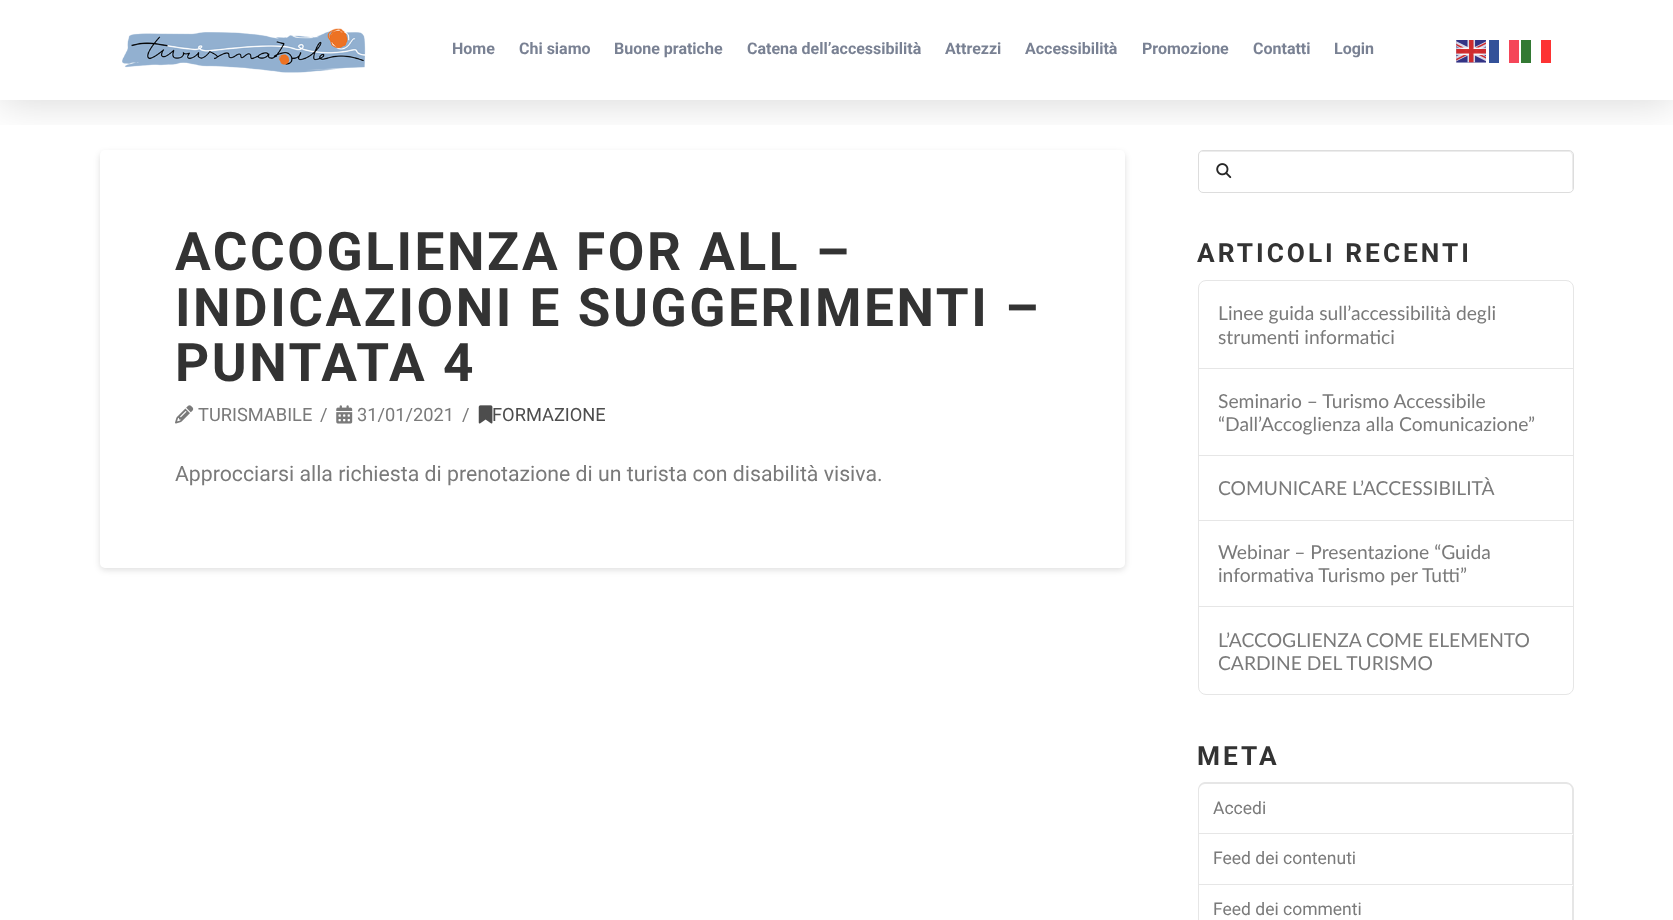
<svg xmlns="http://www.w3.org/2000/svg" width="1673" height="920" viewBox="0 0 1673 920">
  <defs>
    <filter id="blur1" x="-50%" y="-200%" width="200%" height="500%"><feGaussianBlur stdDeviation="3"/></filter>
    <clipPath id="clip1"><rect x="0" y="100" width="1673" height="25"/></clipPath>
    <filter id="blur2" x="-50%" y="-200%" width="200%" height="500%"><feGaussianBlur stdDeviation="20"/></filter>
    <clipPath id="clip2"><path d="M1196 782H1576V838H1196ZM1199 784H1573V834H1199Z" clip-rule="evenodd"/></clipPath>
    <filter id="blur3" x="-50%" y="-200%" width="200%" height="500%"><feGaussianBlur stdDeviation="0.5"/></filter>
    <clipPath id="clip3"><path d="M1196 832H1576V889H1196ZM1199 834H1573V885H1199Z" clip-rule="evenodd"/></clipPath>
    <clipPath id="clip4"><path d="M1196 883H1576V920H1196ZM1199 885H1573V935H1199Z" clip-rule="evenodd"/></clipPath>
  </defs>
  <rect width="100%" height="100%" fill="#ffffff"/>
  <rect x="100" y="153" width="1025" height="417" rx="5" fill="#000000" fill-opacity="0.13" filter="url(#blur1)"/>
  <rect x="100" y="150" width="1025" height="418" rx="5" fill="#ffffff"/>
  <path d="M1202 152H1569C1571 152 1572 154 1572 156V190C1573 189 1573 188 1573 187V155C1573 153 1571 151 1569 151H1203C1201 151 1199 153 1199 155V156C1199 154 1200 152 1202 152Z" fill="#ececec"/>
  <rect x="1198.5" y="150.5" width="375" height="42" rx="4.5" fill="none" stroke="#dddddd"/>
  <image x="1216" y="163" width="16" height="16" href="img6.png"/>
  <g clip-path="url(#clip1)">
    <rect x="0" y="3" width="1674" height="100" fill="#000000" fill-opacity="0.15" filter="url(#blur2)"/>
  </g>
  <image x="122" y="28" width="244" height="45" href="img1.png"/>
  <text x="452" y="54" font-family="Roboto" font-size="16" font-weight="bold" fill="#798193">Home</text>
  <text x="519" y="54" font-family="Roboto" font-size="16" font-weight="bold" fill="#798193">Chi siamo</text>
  <text x="614" y="54" font-family="Roboto" font-size="16" font-weight="bold" fill="#798193">Buone pratiche</text>
  <text x="747" y="54" font-family="Roboto" font-size="16" font-weight="bold" fill="#798193">Catena dell’accessibilità</text>
  <text x="945" y="54" font-family="Roboto" font-size="16" font-weight="bold" fill="#798193">Attrezzi</text>
  <text x="1025" y="54" font-family="Roboto" font-size="16" font-weight="bold" fill="#798193">Accessibilità</text>
  <text x="1142" y="54" font-family="Roboto" font-size="16" font-weight="bold" fill="#798193">Promozione</text>
  <text x="1253" y="54" font-family="Roboto" font-size="16" font-weight="bold" fill="#798193">Contatti</text>
  <text x="1334" y="54" font-family="Roboto" font-size="16" font-weight="bold" fill="#798193">Login</text>
  <image x="1456" y="40" width="30" height="23" href="img2.png"/>
  <rect x="1489" y="40" width="10" height="23" fill="#335199"/>
  <rect x="1509" y="40" width="10" height="23" fill="#f54659"/>
  <rect x="1521" y="40" width="10" height="23" fill="#337933"/>
  <rect x="1541" y="40" width="10" height="23" fill="#fd3333"/>
  <text x="175" y="270" font-family="Roboto" font-size="53.1" font-weight="bold" letter-spacing="2.55" fill="#333333">ACCOGLIENZA FOR ALL –</text>
  <text x="175" y="326" font-family="Roboto" font-size="53.1" font-weight="bold" letter-spacing="2.55" fill="#333333">INDICAZIONI E SUGGERIMENTI –</text>
  <text x="175" y="381" font-family="Roboto" font-size="53.1" font-weight="bold" letter-spacing="2.55" fill="#333333">PUNTATA 4</text>
  <image x="175" y="405" width="19" height="19" href="img3.png"/>
  <text x="198" y="421" font-family="Roboto" font-size="18.25" fill="#7a7a7a">TURISMABILE</text>
  <text x="320" y="421" font-family="Roboto" font-size="18.25" fill="#7a7a7a">/</text>
  <image x="336" y="405" width="17" height="19" href="img4.png"/>
  <text x="357" y="421" font-family="Roboto" font-size="18.25" fill="#7a7a7a">31/01/2021</text>
  <text x="462" y="421" font-family="Roboto" font-size="18.25" fill="#7a7a7a">/</text>
  <image x="478" y="405" width="15" height="19" href="img5.png"/>
  <text x="492" y="421" font-family="Roboto" font-size="18.25" fill="#4d4d4d">FORMAZIONE</text>
  <text x="175" y="481" font-family="Roboto" font-size="21.25" fill="#7a7a7a">Approcciarsi alla richiesta di prenotazione di un turista con disabilità visiva.</text>
  <text x="1197" y="262" font-family="Roboto" font-size="26.25" font-weight="bold" letter-spacing="3" fill="#333333">ARTICOLI RECENTI</text>
  <rect x="1198.5" y="280.5" width="375" height="414" rx="7.5" fill="none" stroke="#e6e6e6"/>
  <rect x="1199" y="368" width="374" height="1" fill="#e6e6e6"/>
  <text x="1218" y="320" font-family="Lato" font-size="19.25" fill="#7a7a7a">Linee guida sull’accessibilità degli</text>
  <text x="1218" y="344" font-family="Lato" font-size="19.25" fill="#7a7a7a">strumenti informatici</text>
  <rect x="1199" y="455" width="374" height="1" fill="#e6e6e6"/>
  <text x="1218" y="408" font-family="Lato" font-size="19.25" fill="#7a7a7a">Seminario – Turismo Accessibile</text>
  <text x="1218" y="431" font-family="Lato" font-size="19.25" fill="#7a7a7a">“Dall’Accoglienza alla Comunicazione”</text>
  <rect x="1199" y="520" width="374" height="1" fill="#e6e6e6"/>
  <text x="1218" y="495" font-family="Lato" font-size="19.25" fill="#7a7a7a">COMUNICARE L’ACCESSIBILITÀ</text>
  <rect x="1199" y="606" width="374" height="1" fill="#e6e6e6"/>
  <text x="1218" y="559" font-family="Lato" font-size="19.25" fill="#7a7a7a">Webinar – Presentazione “Guida</text>
  <text x="1218" y="582" font-family="Lato" font-size="19.25" fill="#7a7a7a">informativa Turismo per Tutti”</text>
  <text x="1218" y="647" font-family="Lato" font-size="19.25" fill="#7a7a7a">L’ACCOGLIENZA COME ELEMENTO</text>
  <text x="1218" y="670" font-family="Lato" font-size="19.25" fill="#7a7a7a">CARDINE DEL TURISMO</text>
  <text x="1197" y="765" font-family="Roboto" font-size="26.25" font-weight="bold" letter-spacing="3" fill="#333333">META</text>
  <path d="M1205 782H1566C1570 782 1574 786 1574 790V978C1574 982 1570 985 1566 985H1205C1201 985 1198 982 1198 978V790C1198 786 1201 782 1205 782ZM1205 784H1566C1570 784 1572 787 1572 790V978C1572 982 1570 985 1566 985H1205C1202 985 1199 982 1199 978V790C1199 787 1202 784 1205 784Z" fill="#e6e6e6" fill-rule="evenodd"/>
  <g clip-path="url(#clip2)">
    <rect x="1199" y="785" width="374" height="50" fill="#ffffff" fill-opacity="0.95" filter="url(#blur3)"/>
  </g>
  <rect x="1199" y="833" width="373" height="1" fill="#e6e6e6"/>
  <text x="1213" y="814" font-family="Roboto" font-size="17.5" fill="#7a7a7a">Accedi</text>
  <g clip-path="url(#clip3)">
    <rect x="1199" y="835" width="374" height="51" fill="#ffffff" fill-opacity="0.95" filter="url(#blur3)"/>
  </g>
  <rect x="1199" y="884" width="373" height="1" fill="#e6e6e6"/>
  <text x="1213" y="864" font-family="Roboto" font-size="17.5" fill="#7a7a7a">Feed dei contenuti</text>
  <g clip-path="url(#clip4)">
    <rect x="1199" y="886" width="374" height="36" fill="#ffffff" fill-opacity="0.95" filter="url(#blur3)"/>
  </g>
  <text x="1213" y="915" font-family="Roboto" font-size="17.5" fill="#7a7a7a">Feed dei commenti</text>
</svg>
